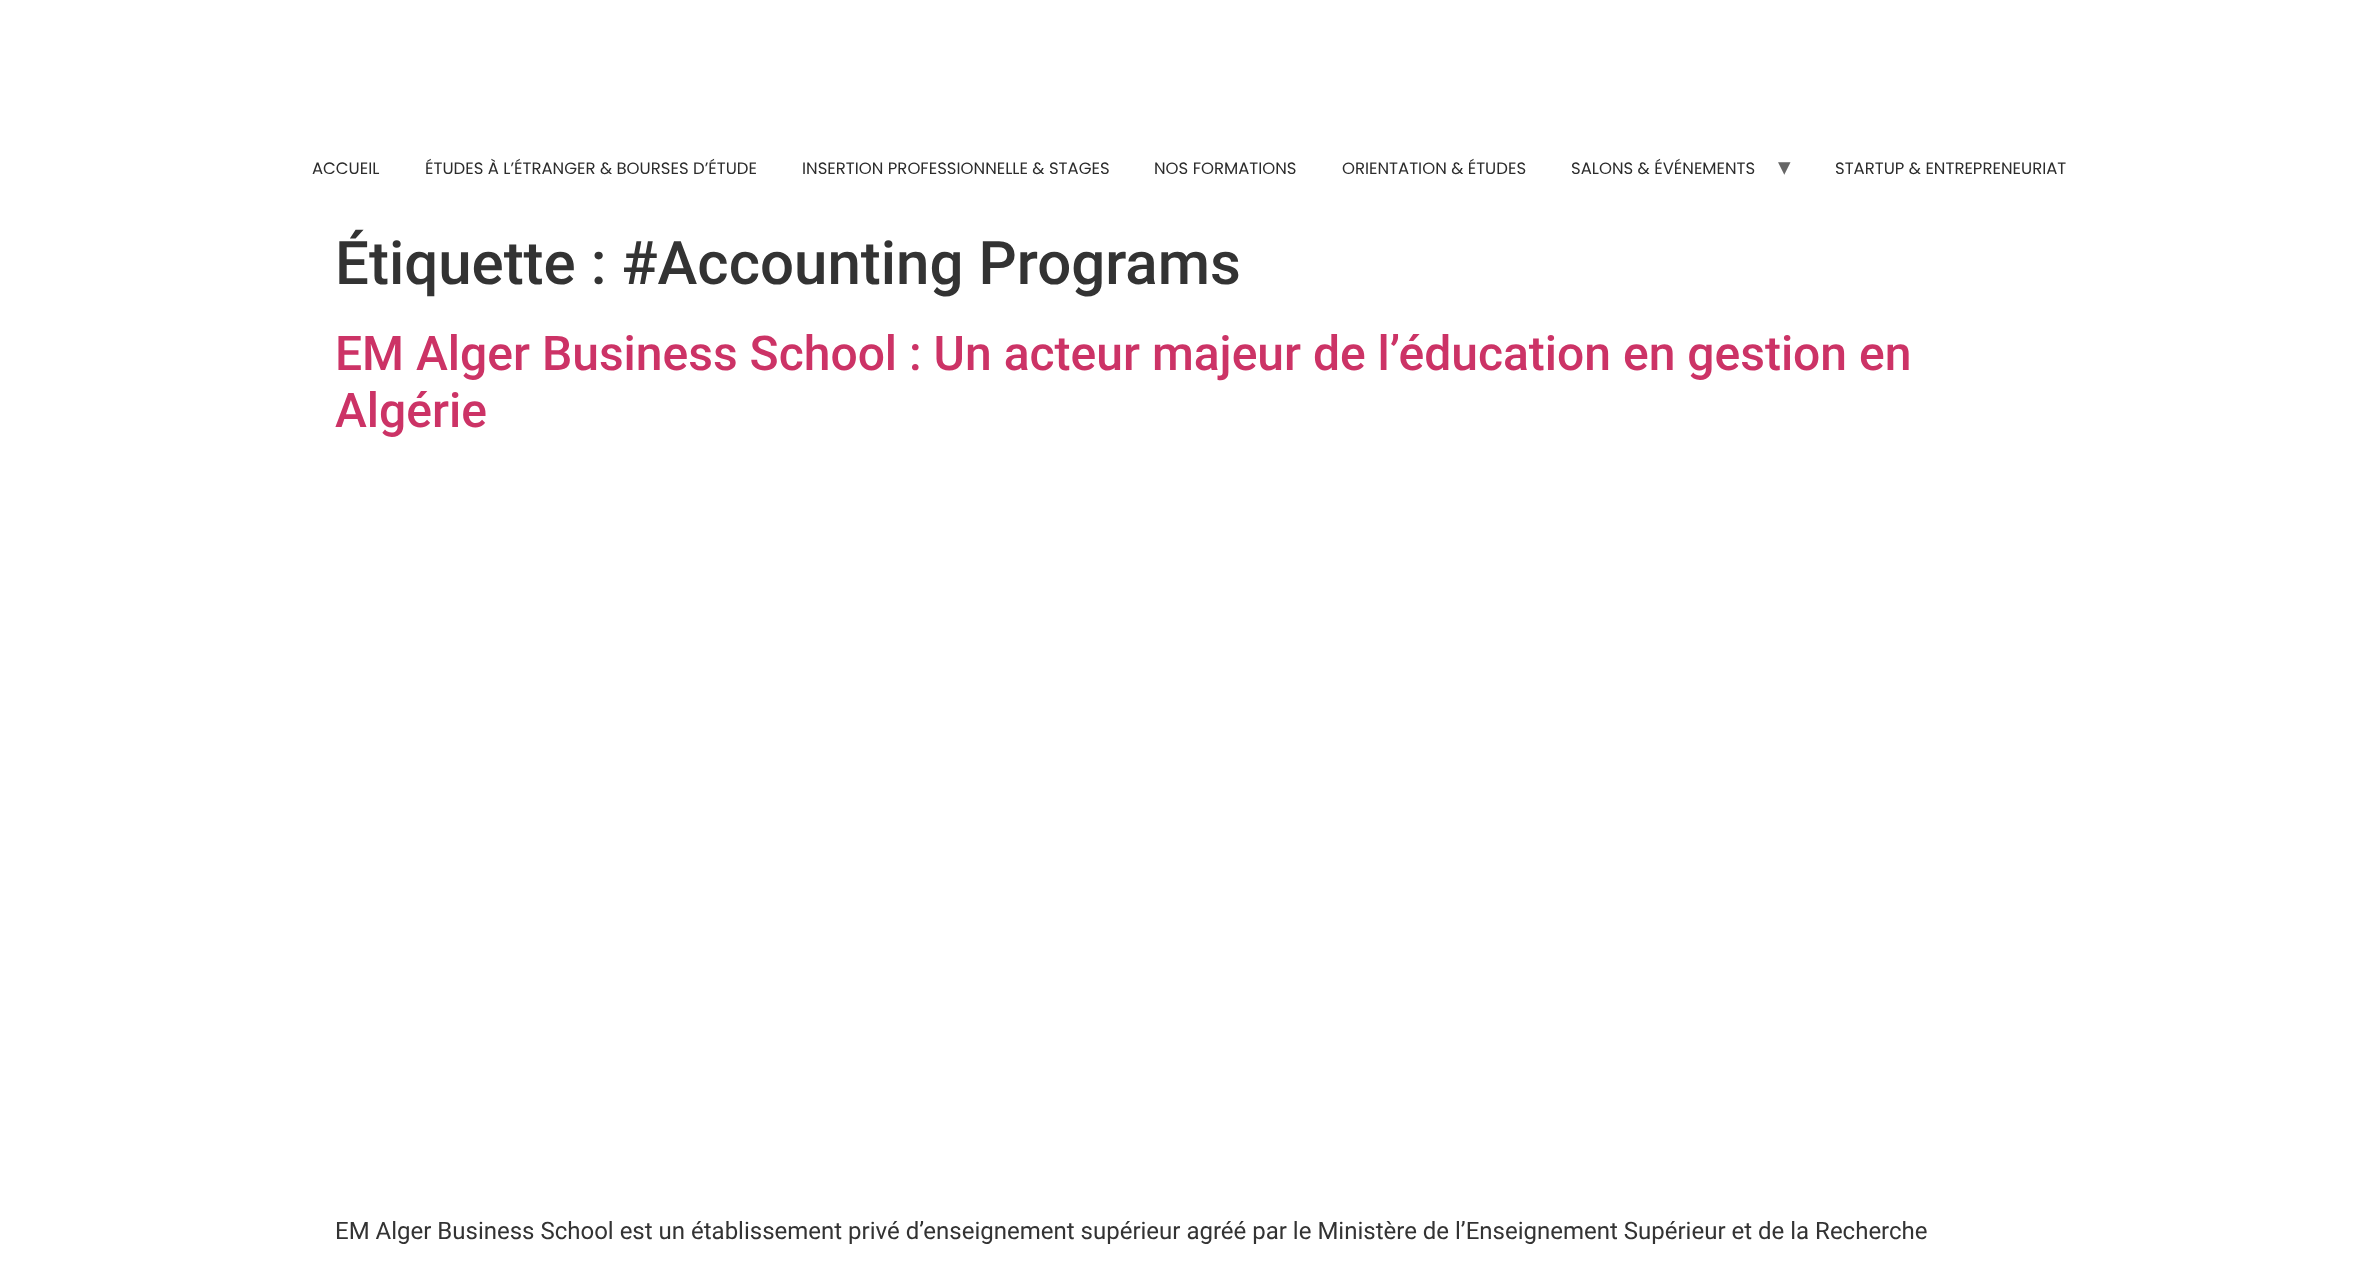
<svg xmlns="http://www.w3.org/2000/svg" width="2378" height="1262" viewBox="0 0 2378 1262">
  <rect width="100%" height="100%" fill="#ffffff"/>
  <text x="312" y="174" font-family="Poppins" font-size="16.5" fill="#2c2c2c">ACCUEIL</text>
  <text x="425" y="174" font-family="Poppins" font-size="16.5" fill="#2c2c2c">ÉTUDES À L’ÉTRANGER &amp; BOURSES D’ÉTUDE</text>
  <text x="802" y="174" font-family="Poppins" font-size="16.5" fill="#2c2c2c">INSERTION PROFESSIONNELLE &amp; STAGES</text>
  <text x="1154" y="174" font-family="Poppins" font-size="16.5" fill="#2c2c2c">NOS FORMATIONS</text>
  <text x="1342" y="174" font-family="Poppins" font-size="16.5" fill="#2c2c2c">ORIENTATION &amp; ÉTUDES</text>
  <text x="1571" y="174" font-family="Poppins" font-size="16.5" fill="#2c2c2c">SALONS &amp; ÉVÉNEMENTS</text>
  <text x="1778" y="175" font-family="DejaVu Sans" font-size="25" fill="#666666">▾</text>
  <text x="1835" y="174" font-family="Poppins" font-size="16.5" fill="#2c2c2c">STARTUP &amp; ENTREPRENEURIAT</text>
  <text x="335" y="284" font-family="Roboto" font-size="60" font-weight="500" fill="#333333">Étiquette : #Accounting Programs</text>
  <text x="335" y="370" font-family="Roboto" font-size="48" font-weight="500" fill="#cc3366">EM Alger Business School : Un acteur majeur de l’éducation en gestion en</text>
  <text x="335" y="427" font-family="Roboto" font-size="48" font-weight="500" fill="#cc3366">Algérie</text>
  <text x="335" y="1239" font-family="Roboto" font-size="24" fill="#333333">EM Alger Business School est un établissement privé d’enseignement supérieur agréé par le Ministère de l’Enseignement Supérieur et de la Recherche</text>
</svg>
